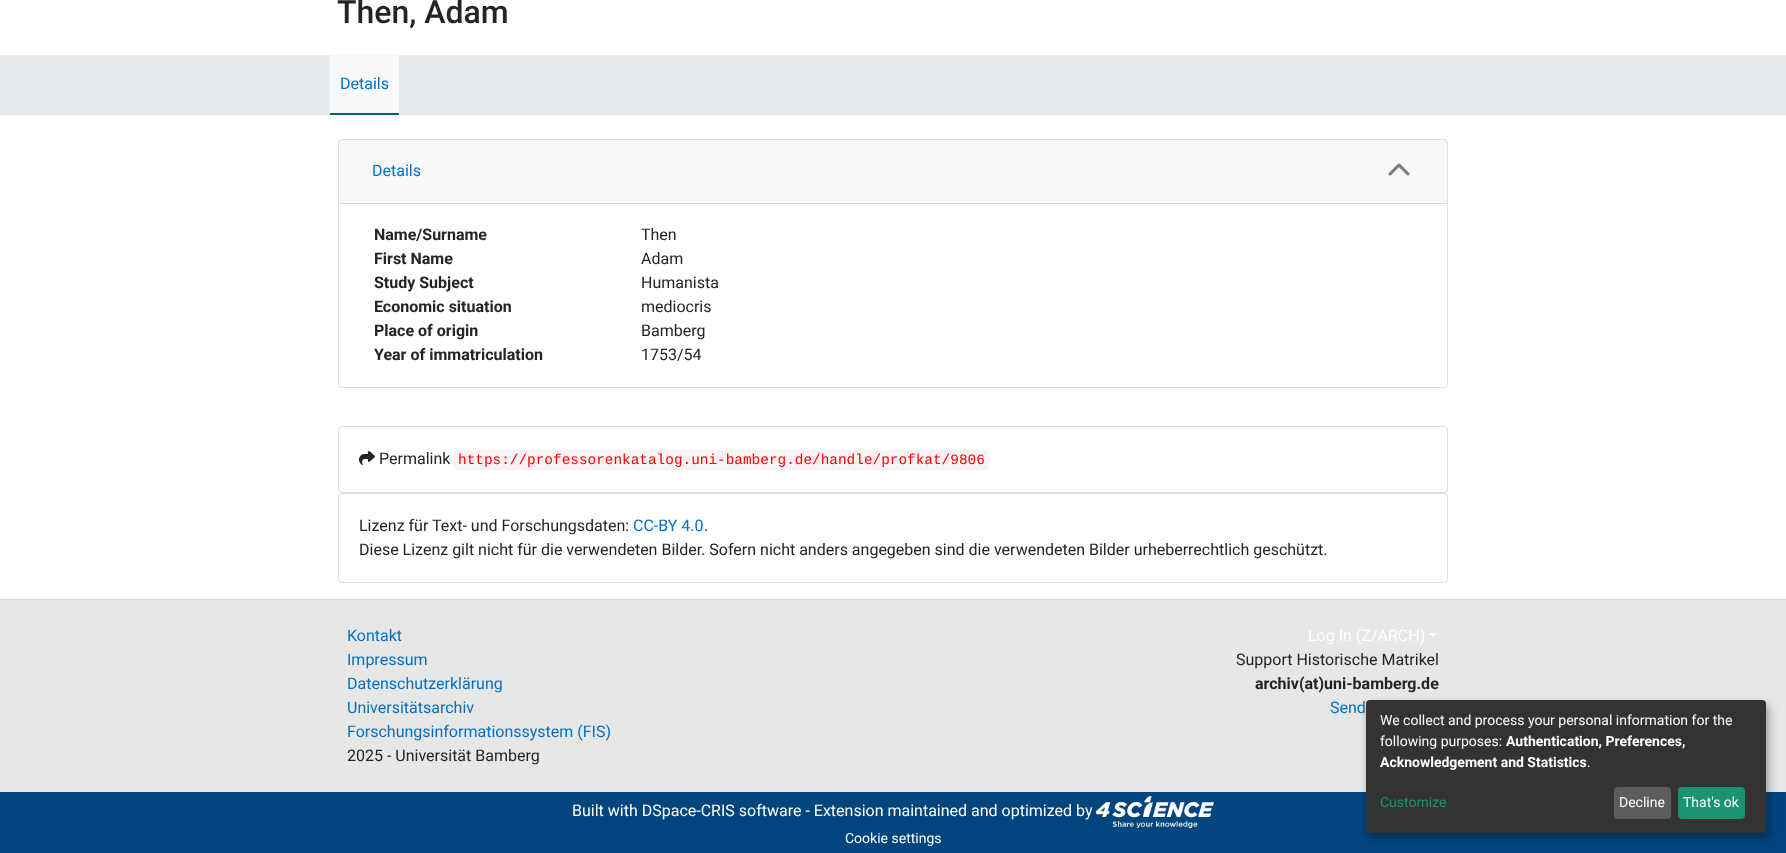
<svg xmlns="http://www.w3.org/2000/svg" width="1786" height="853" viewBox="0 0 1786 853">
  <defs>
    <filter id="blur1" x="-50%" y="-200%" width="200%" height="500%"><feGaussianBlur stdDeviation="5"/></filter>
    <filter id="blur2" x="-50%" y="-200%" width="200%" height="500%"><feGaussianBlur stdDeviation="3"/></filter>
  </defs>
  <rect width="100%" height="100%" fill="#ffffff"/>
  <text x="337" y="23" font-family="Roboto" font-size="32" font-weight="500" fill="#212529">Then, Adam</text>
  <rect x="0" y="55" width="1786" height="60" fill="#e9ecef"/>
  <rect x="330" y="113" width="69" height="2" fill="#006666"/>
  <rect x="330" y="55" width="69" height="58" fill="#f8f9fa"/>
  <text x="340" y="89" font-family="Roboto" font-size="16" fill="#0070ca">Details</text>
  <rect x="338.5" y="139.5" width="1109" height="248" rx="3.5" fill="none" stroke="#dfdfdf"/>
  <rect x="339" y="140" width="1108" height="63" fill="#000000" fill-opacity="0.03"/>
  <rect x="339" y="203" width="1108" height="1" fill="#d8d8d8"/>
  <text x="372" y="176" font-family="Roboto" font-size="16" fill="#0070ca">Details</text>
  <image x="1388" y="163" width="22" height="13" href="img1.png"/>
  <text x="374" y="240" font-family="Roboto" font-size="16" font-weight="bold" fill="#212529">Name/Surname</text>
  <text x="641" y="240" font-family="Roboto" font-size="16" fill="#212529">Then</text>
  <text x="374" y="264" font-family="Roboto" font-size="16" font-weight="bold" fill="#212529">First Name</text>
  <text x="641" y="264" font-family="Roboto" font-size="16" fill="#212529">Adam</text>
  <text x="374" y="288" font-family="Roboto" font-size="16" font-weight="bold" fill="#212529">Study Subject</text>
  <text x="641" y="288" font-family="Roboto" font-size="16" fill="#212529">Humanista</text>
  <text x="374" y="312" font-family="Roboto" font-size="16" font-weight="bold" fill="#212529">Economic situation</text>
  <text x="641" y="312" font-family="Roboto" font-size="16" fill="#212529">mediocris</text>
  <text x="374" y="336" font-family="Roboto" font-size="16" font-weight="bold" fill="#212529">Place of origin</text>
  <text x="641" y="336" font-family="Roboto" font-size="16" fill="#212529">Bamberg</text>
  <text x="374" y="360" font-family="Roboto" font-size="16" font-weight="bold" fill="#212529">Year of immatriculation</text>
  <text x="641" y="360" font-family="Roboto" font-size="16" fill="#212529">1753/54</text>
  <rect x="338.5" y="426.5" width="1109" height="66" rx="3.5" fill="none" stroke="#dfdfdf"/>
  <image x="359" y="451" width="16" height="14" href="img2.png"/>
  <text x="379" y="464" font-family="Roboto" font-size="16" fill="#212529">Permalink</text>
  <rect x="454" y="450" width="535" height="20" rx="4" fill="#f9f2f4"/>
  <text x="458" y="464" font-family="Liberation Mono" font-size="14.4" fill="#ff0000">https://professorenkatalog.uni-bamberg.de/handle/profkat/9806</text>
  <rect x="338.5" y="493.5" width="1109" height="89" rx="3.5" fill="none" stroke="#dfdfdf"/>
  <text x="359" y="531" font-family="Roboto" font-size="16" fill="#212529">Lizenz für Text- und Forschungsdaten:</text>
  <text x="633" y="531" font-family="Roboto" font-size="16" fill="#0070ca">CC-BY 4.0</text>
  <text x="704" y="531" font-family="Roboto" font-size="16" fill="#212529">.</text>
  <text x="359" y="555" font-family="Roboto" font-size="16" fill="#212529">Diese Lizenz gilt nicht für die verwendeten Bilder. Sofern nicht anders angegeben sind die verwendeten Bilder urheberrechtlich geschützt.</text>
  <rect x="0" y="600" width="1786" height="192" fill="#e7e7e6"/>
  <rect x="0" y="599" width="1786" height="1" fill="#ced4da"/>
  <text x="347" y="641" font-family="Roboto" font-size="16" fill="#0070ca">Kontakt</text>
  <text x="347" y="665" font-family="Roboto" font-size="16" fill="#0070ca">Impressum</text>
  <text x="347" y="689" font-family="Roboto" font-size="16" fill="#0070ca">Datenschutzerklärung</text>
  <text x="347" y="713" font-family="Roboto" font-size="16" fill="#0070ca">Universitätsarchiv</text>
  <text x="347" y="737" font-family="Roboto" font-size="16" fill="#0070ca">Forschungsinformationssystem (FIS)</text>
  <text x="347" y="761" font-family="Roboto" font-size="16" fill="#212529">2025 - Universität Bamberg</text>
  <text x="1308" y="641" font-family="Roboto" font-size="16" fill="#ffffff">Log In (Z/ARCH)</text>
  <path d="M1429 633H1437L1433 637Z" fill="#ffffff"/>
  <text x="1236" y="665" font-family="Roboto" font-size="16" fill="#212529">Support Historische Matrikel</text>
  <text x="1255" y="689" font-family="Roboto" font-size="16" font-weight="bold" fill="#212529">archiv(at)uni-bamberg.de</text>
  <text x="1330" y="713" font-family="Roboto" font-size="16" fill="#0070ca">Send</text>
  <rect x="0" y="792" width="1786" height="61" fill="#00457d"/>
  <text x="572" y="816" font-family="Roboto" font-size="16" fill="#ffffff">Built with DSpace-CRIS software - Extension maintained and optimized by</text>
  <image x="1096" y="796" width="118" height="32" href="img3.png"/>
  <text x="845" y="843" font-family="Roboto" font-size="14" fill="#ffffff">Cookie settings</text>
  <rect x="1371" y="705" width="400" height="133" rx="4" fill="#000000" fill-opacity="0.19" filter="url(#blur1)"/>
  <rect x="1366" y="704" width="400" height="133" rx="4" fill="#000000" fill-opacity="0.2" filter="url(#blur2)"/>
  <rect x="1366" y="700" width="400" height="133" rx="4" fill="#333333"/>
  <text x="1380" y="725" font-family="Roboto" font-size="14" fill="#ffffff">We collect and process your personal information for the</text>
  <text x="1380" y="746" font-family="Roboto" font-size="14" fill="#ffffff">following purposes:</text>
  <text x="1506" y="746" font-family="Roboto" font-size="14" font-weight="bold" fill="#ffffff">Authentication, Preferences,</text>
  <text x="1380" y="767" font-family="Roboto" font-size="14" font-weight="bold" fill="#ffffff">Acknowledgement and Statistics</text>
  <text x="1587" y="767" font-family="Roboto" font-size="14" fill="#ffffff">.</text>
  <text x="1380" y="807" font-family="Roboto" font-size="14" fill="#1a936f">Customize</text>
  <rect x="1614" y="787" width="57" height="32" rx="4" fill="#5c5c5c"/>
  <text x="1619" y="807" font-family="Roboto" font-size="14" fill="#ffffff">Decline</text>
  <rect x="1678" y="787" width="67" height="32" rx="4" fill="#1a936f"/>
  <text x="1683" y="807" font-family="Roboto" font-size="14" fill="#ffffff">That's ok</text>
</svg>
